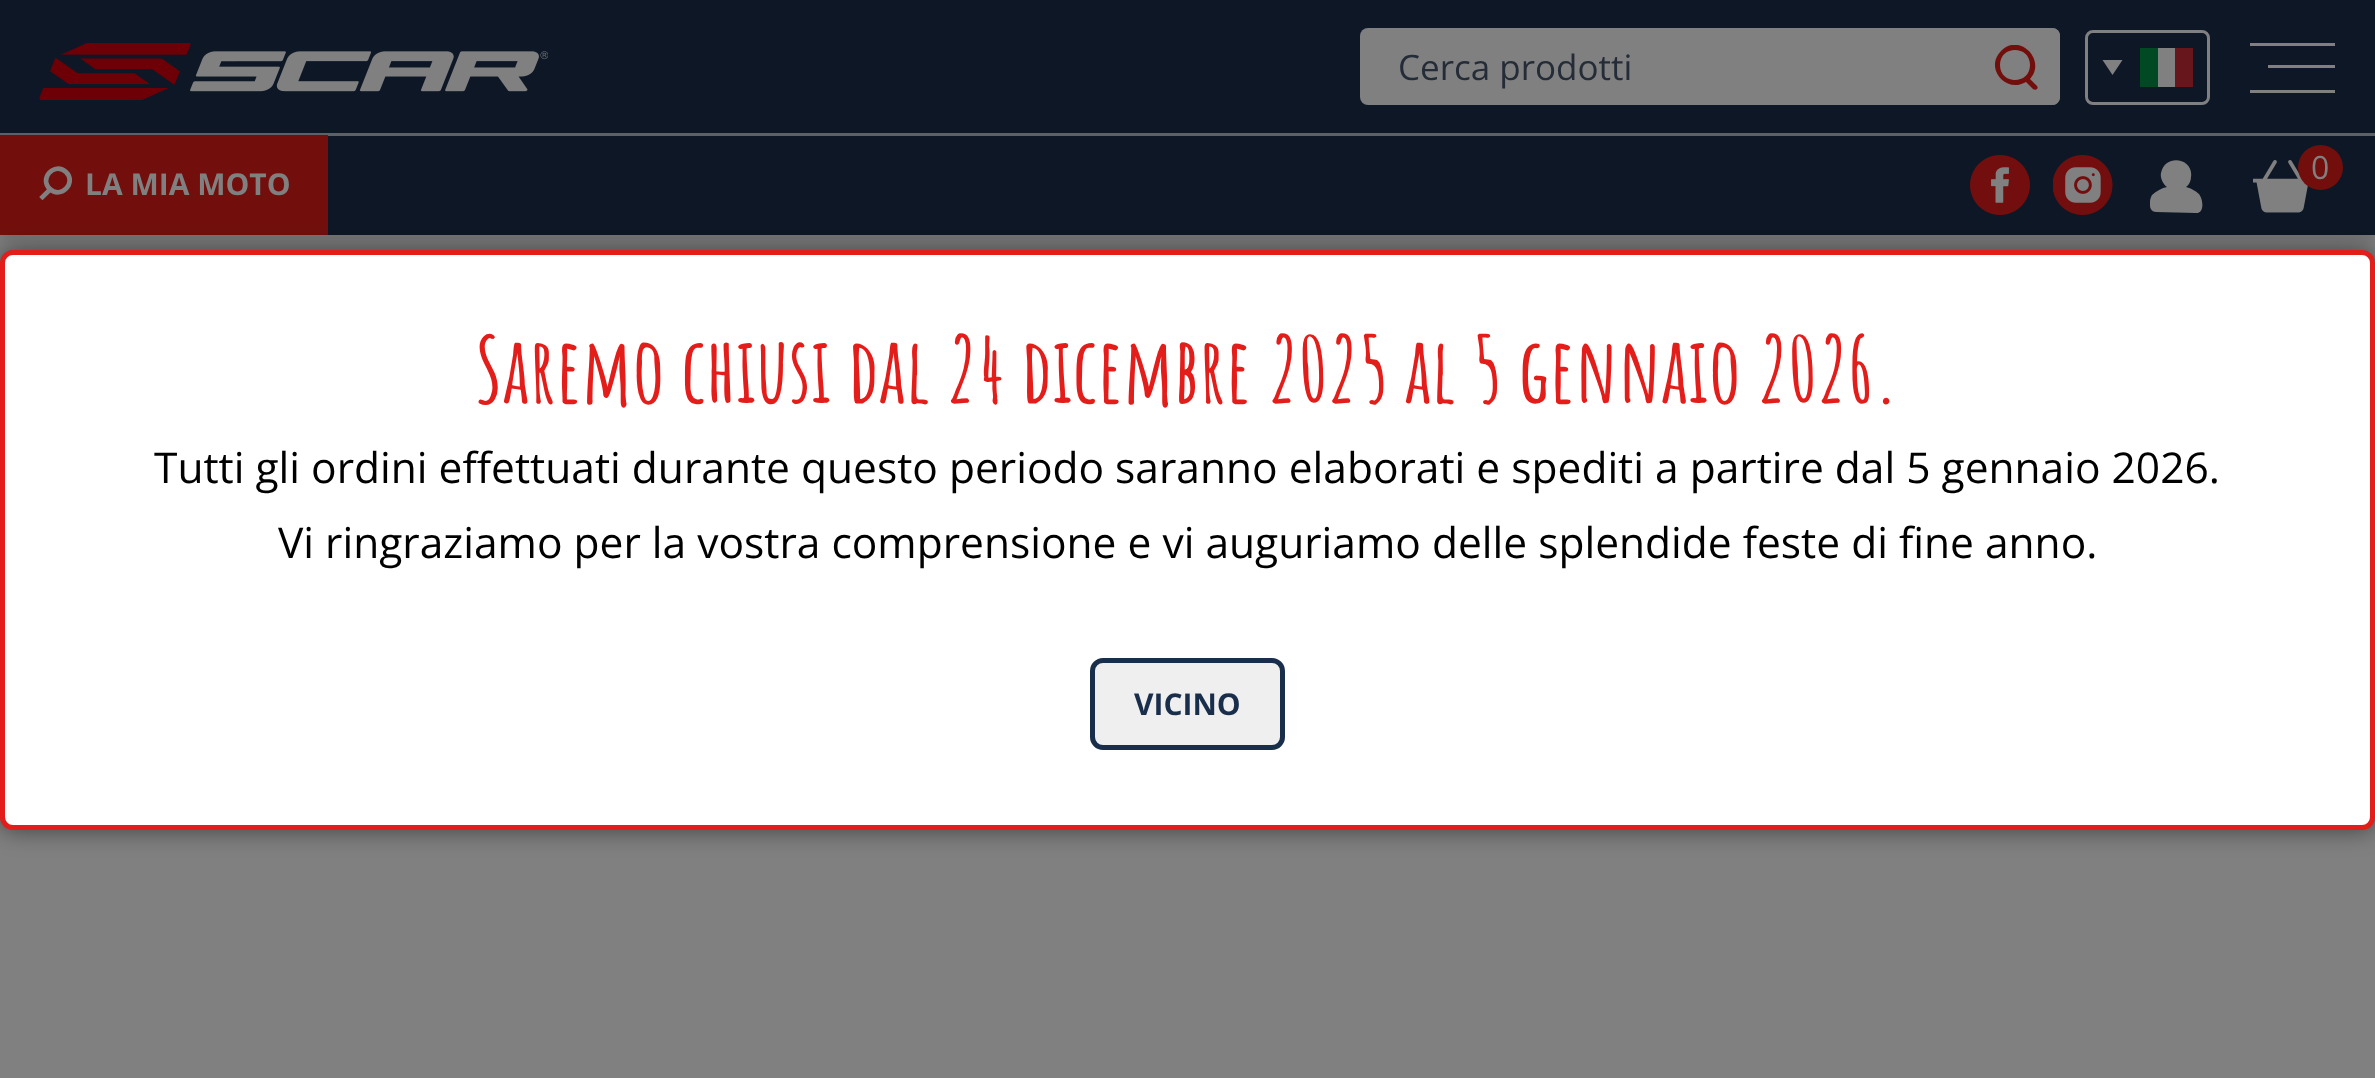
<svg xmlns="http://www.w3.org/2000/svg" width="2375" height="1078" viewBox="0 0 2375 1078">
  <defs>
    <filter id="blur1" x="-50%" y="-200%" width="200%" height="500%"><feGaussianBlur stdDeviation="6"/></filter>
    <clipPath id="clip1"><rect x="1995" y="45" width="43" height="45"/></clipPath>
    <clipPath id="clip2"><rect x="2150" y="160" width="53" height="53"/></clipPath>
    <filter id="blur2" x="-50%" y="-200%" width="200%" height="500%"><feGaussianBlur stdDeviation="12.5"/></filter>
  </defs>
  <rect width="100%" height="100%" fill="#808080"/>
  <rect x="0" y="5" width="2375" height="235" fill="#000000" fill-opacity="0.11" filter="url(#blur1)"/>
  <rect x="0" y="0" width="2375" height="235" fill="#0d1726"/>
  <rect x="0" y="133" width="2375" height="3" fill="#5d6065"/>
  <image x="39" y="43" width="509" height="57" href="img1.png"/>
  <rect x="1360" y="28" width="700" height="77" rx="8" fill="#808080"/>
  <text x="1398" y="80" font-family="Open Sans" font-size="35" fill="#242c38">Cerca prodotti</text>
  <path d="M1973 28H2052C2056.5 28 2060 31.5 2060 36V97C2060 101.5 2056.5 105 2052 105H1973Z" fill="#808080"/>
  <g clip-path="url(#clip1)">
    <path d="M2033 89L2026 82C2006 94 1984 68 2001 51C2019 32 2047 60 2030 79L2034 83C2036 85 2039 87 2037 89C2036 90 2034 90 2033 89ZM2000 65C2000 85 2030 85 2030 65C2030 45 2000 45 2000 65Z" fill="#720f0d"/>
  </g>
  <rect x="2086.5" y="31.5" width="122" height="72" rx="6.5" fill="none" stroke="#808080" stroke-width="3"/>
  <path d="M2112.5 75L2102.5 60H2122.5Z" fill="#808080"/>
  <rect x="2158" y="48" width="17" height="39" fill="#808080"/>
  <rect x="2140" y="48" width="18" height="39" fill="#004923"/>
  <rect x="2175" y="48" width="18" height="39" fill="#67161c"/>
  <rect x="2250" y="43" width="85" height="3" fill="#808080"/>
  <rect x="2268" y="65" width="67" height="3" fill="#808080"/>
  <rect x="2250" y="90" width="85" height="3" fill="#808080"/>
  <image x="1970" y="155" width="60" height="60" href="img2.png"/>
  <image x="2053" y="155" width="60" height="60" href="img3.png"/>
  <g clip-path="url(#clip2)">
    <path d="M2156 212C2148 212 2149 200 2152 195C2156 191 2162 188 2167 187C2163 184 2160 178 2161 173C2165 153 2194 158 2191 177C2191 181 2189 185 2186 187C2190 188 2196 191 2199 194C2203 199 2205 213 2196 213Z" fill="#808080"/>
  </g>
  <image x="2253" y="160" width="55" height="53" href="img4.png"/>
  <circle cx="2320.5" cy="167.5" r="22.5" fill="#720f0d"/>
  <text x="2311" y="179" font-family="Open Sans" font-size="32" fill="#808080">0</text>
  <rect x="0" y="135" width="328" height="100" fill="#720f0d"/>
  <path d="M66 172C77 182.5 61 199.5 50 189C38.5 178.5 54.5 161.5 66 172Z" fill="none" stroke="#808080" stroke-width="4.7"/>
  <text x="85" y="195" font-family="Open Sans" font-size="30" font-weight="bold" fill="#808080">LA MIA MOTO</text>
  <path d="M48.5 191L42.5 197" fill="none" stroke="#808080" stroke-width="4.7" stroke-linecap="square"/>
  <rect x="0" y="250" width="2375" height="580" rx="13" fill="#000000" fill-opacity="0.5" filter="url(#blur2)"/>
  <rect x="2.5" y="252.5" width="2370" height="575" rx="10.5" fill="#ffffff" stroke="#e31d1a" stroke-width="5"/>
  <text x="475" y="403" font-family="Amatic SC" font-size="90" font-weight="bold" fill="#e31d1a">Saremo chiusi dal 24 dicembre 2025 al 5 gennaio 2026.</text>
  <text x="154" y="483" font-family="Open Sans" font-size="42.5" fill="#000000">Tutti gli ordini effettuati durante questo periodo saranno elaborati e spediti a partire dal 5 gennaio 2026.</text>
  <text x="278" y="558" font-family="Open Sans" font-size="42.5" fill="#000000">Vi ringraziamo per la vostra comprensione e vi auguriamo delle splendide feste di fine anno.</text>
  <rect x="1092.5" y="660.5" width="190" height="87" rx="10.5" fill="#efefef" stroke="#192e4b" stroke-width="5"/>
  <text x="1134" y="715" font-family="Open Sans" font-size="30" font-weight="bold" fill="#192e4b">VICINO</text>
</svg>
